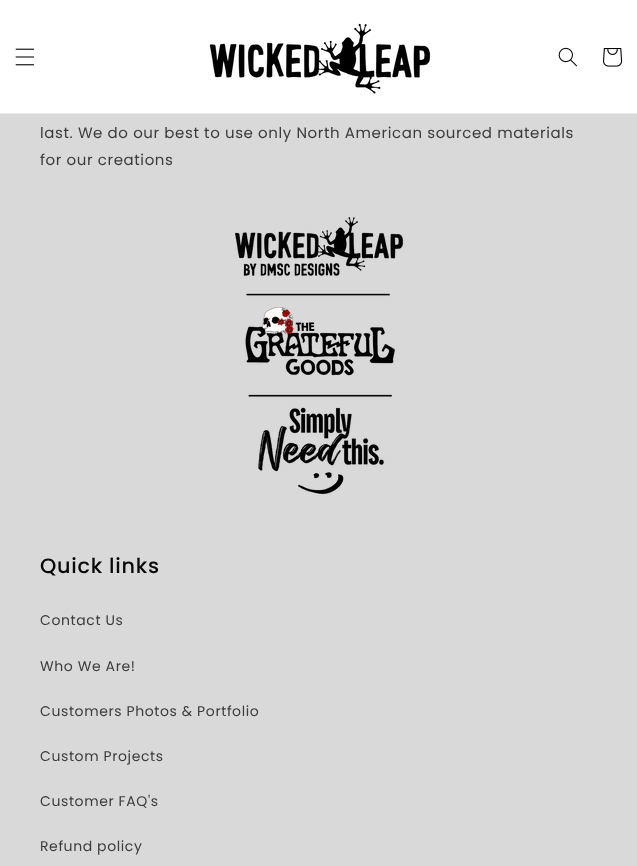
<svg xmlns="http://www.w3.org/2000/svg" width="637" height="866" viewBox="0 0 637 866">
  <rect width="100%" height="100%" fill="#d9d9d9"/>
  <rect x="0" y="0" width="637" height="113" fill="#ffffff"/>
  <rect x="0" y="113" width="637" height="1" fill="#ebebeb"/>
  <image x="15" y="48" width="20" height="18" href="img1.png"/>
  <image x="209" y="23" width="222" height="71" href="img2.png"/>
  <image x="558" y="47" width="19" height="20" href="img3.png"/>
  <image x="603" y="48" width="20" height="19" href="img4.png"/>
  <text x="40" y="138" font-family="Poppins" font-size="15" letter-spacing="0.6" fill="#3c3c3c">last. We do our best to use only North American sourced materials</text>
  <text x="40" y="165" font-family="Poppins" font-size="15" letter-spacing="0.6" fill="#3c3c3c">for our creations</text>
  <image x="235" y="217" width="169" height="278" href="img5.png"/>
  <text x="40" y="573" font-family="Poppins" font-size="20.75" font-weight="500" letter-spacing="0.75" fill="#080808">Quick links</text>
  <text x="40" y="625" font-family="Poppins" font-size="14" letter-spacing="0.6" fill="#3c3c3c">Contact Us</text>
  <text x="40" y="671" font-family="Poppins" font-size="14" letter-spacing="0.6" fill="#3c3c3c">Who We Are!</text>
  <text x="40" y="716" font-family="Poppins" font-size="14" letter-spacing="0.6" fill="#3c3c3c">Customers Photos &amp; Portfolio</text>
  <text x="40" y="761" font-family="Poppins" font-size="14" letter-spacing="0.6" fill="#3c3c3c">Custom Projects</text>
  <text x="40" y="806" font-family="Poppins" font-size="14" letter-spacing="0.6" fill="#3c3c3c">Customer FAQ's</text>
  <text x="40" y="851" font-family="Poppins" font-size="14" letter-spacing="0.6" fill="#3c3c3c">Refund policy</text>
</svg>
